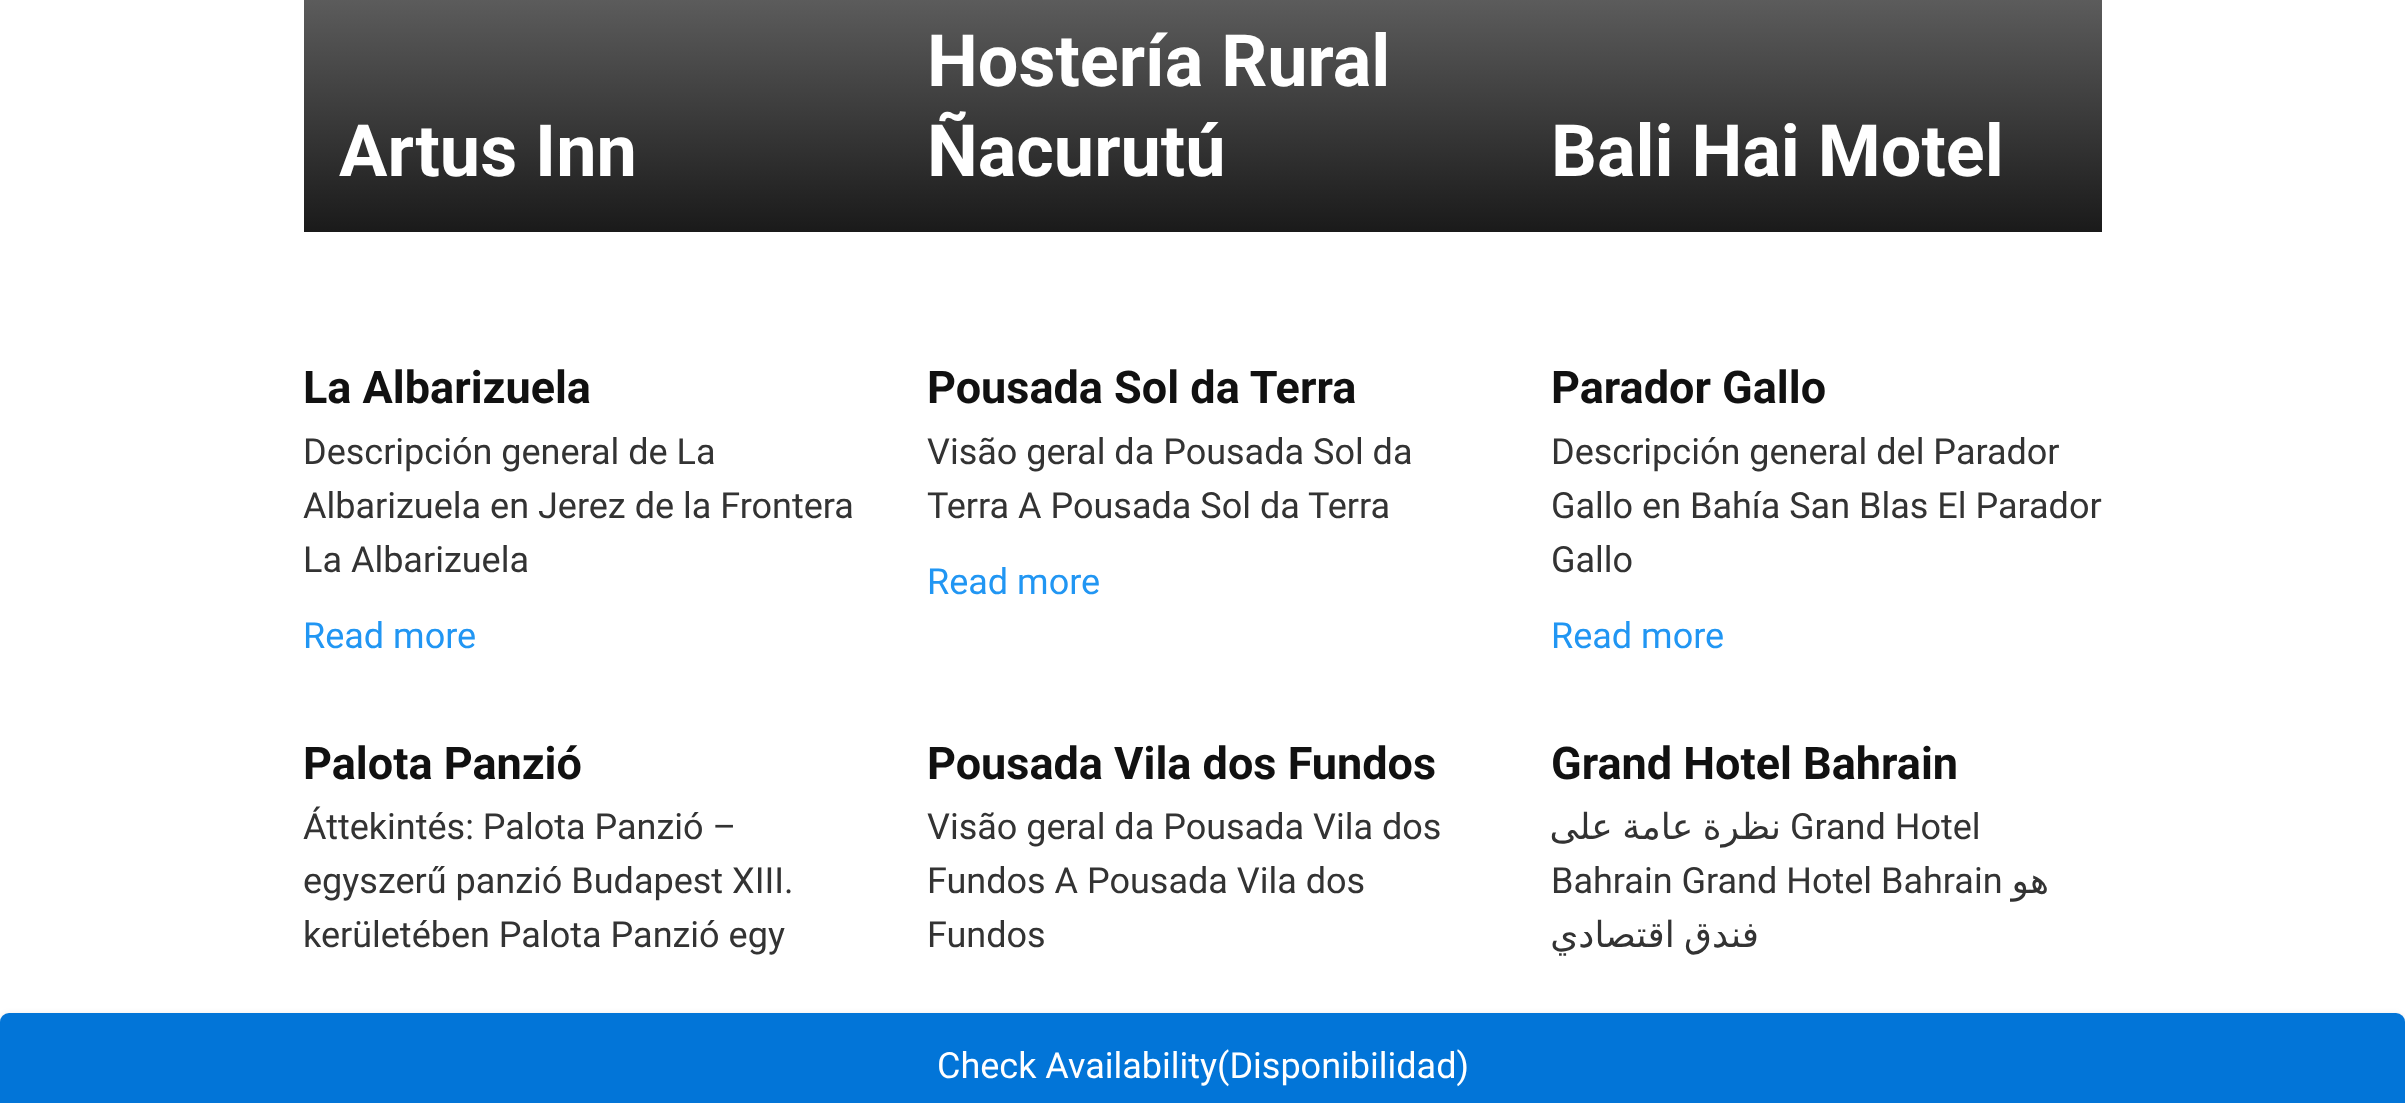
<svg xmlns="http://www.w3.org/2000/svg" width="2405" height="1103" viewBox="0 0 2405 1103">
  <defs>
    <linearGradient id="g1" gradientUnits="userSpaceOnUse" x1="597" y1="-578" x2="597" y2="232"><stop offset="0" stop-color="#ffffff"/><stop offset="1" stop-color="#1a1a1a"/></linearGradient>
    <linearGradient id="g2" gradientUnits="userSpaceOnUse" x1="1203" y1="-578" x2="1203" y2="232"><stop offset="0" stop-color="#ffffff"/><stop offset="1" stop-color="#1a1a1a"/></linearGradient>
    <linearGradient id="g3" gradientUnits="userSpaceOnUse" x1="1808" y1="-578" x2="1808" y2="232"><stop offset="0" stop-color="#ffffff"/><stop offset="1" stop-color="#1a1a1a"/></linearGradient>
    <filter id="blur1" x="-50%" y="-200%" width="200%" height="500%"><feGaussianBlur stdDeviation="3.5"/></filter>
  </defs>
  <rect width="100%" height="100%" fill="#ffffff"/>
  <rect x="304" y="0" width="587" height="232" fill="url(#g1)"/>
  <text x="339" y="176" font-family="Roboto" font-size="72" font-weight="bold" fill="#ffffff">Artus Inn</text>
  <rect x="891" y="0" width="623" height="232" fill="url(#g2)"/>
  <text x="927" y="86" font-family="Roboto" font-size="72" font-weight="bold" fill="#ffffff">Hostería Rural</text>
  <text x="927" y="176" font-family="Roboto" font-size="72" font-weight="bold" fill="#ffffff">Ñacurutú</text>
  <rect x="1514" y="0" width="588" height="232" fill="url(#g3)"/>
  <text x="1551" y="176" font-family="Roboto" font-size="72" font-weight="bold" fill="#ffffff">Bali Hai Motel</text>
  <text x="303" y="403" font-family="Roboto" font-size="45" font-weight="bold" fill="#111111">La Albarizuela</text>
  <text x="303" y="464" font-family="Roboto" font-size="36" fill="#333333">Descripción general de La</text>
  <text x="303" y="518" font-family="Roboto" font-size="36" fill="#333333">Albarizuela en Jerez de la Frontera</text>
  <text x="303" y="572" font-family="Roboto" font-size="36" fill="#333333">La Albarizuela</text>
  <text x="303" y="648" font-family="Roboto" font-size="36" fill="#2196f3">Read more</text>
  <text x="927" y="403" font-family="Roboto" font-size="45" font-weight="bold" fill="#111111">Pousada Sol da Terra</text>
  <text x="927" y="464" font-family="Roboto" font-size="36" fill="#333333">Visão geral da Pousada Sol da</text>
  <text x="927" y="518" font-family="Roboto" font-size="36" fill="#333333">Terra A Pousada Sol da Terra</text>
  <text x="927" y="594" font-family="Roboto" font-size="36" fill="#2196f3">Read more</text>
  <text x="1551" y="403" font-family="Roboto" font-size="45" font-weight="bold" fill="#111111">Parador Gallo</text>
  <text x="1551" y="464" font-family="Roboto" font-size="36" fill="#333333">Descripción general del Parador</text>
  <text x="1551" y="518" font-family="Roboto" font-size="36" fill="#333333">Gallo en Bahía San Blas El Parador</text>
  <text x="1551" y="572" font-family="Roboto" font-size="36" fill="#333333">Gallo</text>
  <text x="1551" y="648" font-family="Roboto" font-size="36" fill="#2196f3">Read more</text>
  <text x="303" y="779" font-family="Roboto" font-size="45" font-weight="bold" fill="#111111">Palota Panzió</text>
  <text x="303" y="839" font-family="Roboto" font-size="36" fill="#333333">Áttekintés: Palota Panzió –</text>
  <text x="303" y="893" font-family="Roboto" font-size="36" fill="#333333">egyszerű panzió Budapest XIII.</text>
  <text x="303" y="947" font-family="Roboto" font-size="36" fill="#333333">kerületében Palota Panzió egy</text>
  <text x="927" y="779" font-family="Roboto" font-size="45" font-weight="bold" fill="#111111">Pousada Vila dos Fundos</text>
  <text x="927" y="839" font-family="Roboto" font-size="36" fill="#333333">Visão geral da Pousada Vila dos</text>
  <text x="927" y="893" font-family="Roboto" font-size="36" fill="#333333">Fundos A Pousada Vila dos</text>
  <text x="927" y="947" font-family="Roboto" font-size="36" fill="#333333">Fundos</text>
  <text x="1551" y="779" font-family="Roboto" font-size="45" font-weight="bold" fill="#111111">Grand Hotel Bahrain</text>
  <text x="1781" y="839" word-spacing="-2" font-family="DejaVu Sans" font-size="36" direction="rtl" fill="#333333">نظرة عامة على</text>
  <text x="1790" y="839" font-family="Roboto" font-size="36" fill="#333333">Grand Hotel</text>
  <text x="1551" y="893" font-family="Roboto" font-size="36" fill="#333333">Bahrain Grand Hotel Bahrain</text>
  <text x="2049" y="893" font-family="DejaVu Sans" font-size="36" direction="rtl" fill="#333333">هو</text>
  <text x="1759" y="947" word-spacing="-2" font-family="DejaVu Sans" font-size="36" direction="rtl" fill="#333333">فندق اقتصادي</text>
  <rect x="0" y="1015" width="2405" height="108" rx="9" fill="#000000" fill-opacity="0.12" filter="url(#blur1)"/>
  <rect x="0" y="1013" width="2405" height="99" rx="9" fill="#0275d8"/>
  <text x="937" y="1078" font-family="Roboto" font-size="36" fill="#ffffff">Check Availability(Disponibilidad)</text>
</svg>
